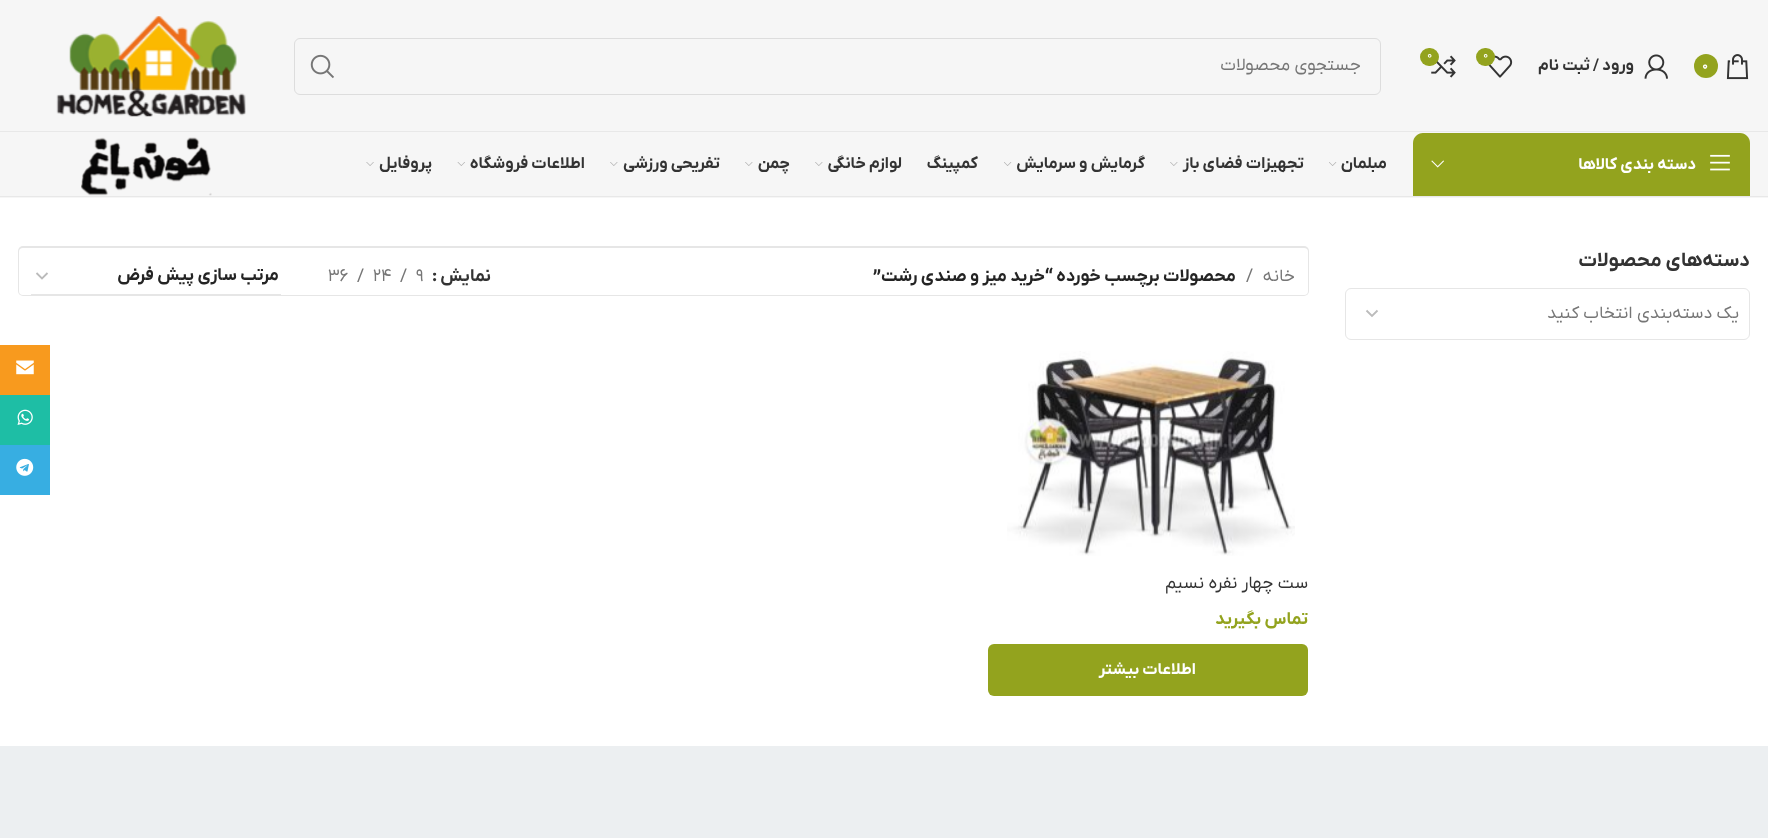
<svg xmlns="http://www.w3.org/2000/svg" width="1768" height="838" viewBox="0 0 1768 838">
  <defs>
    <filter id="blur1" x="-50%" y="-200%" width="200%" height="500%"><feGaussianBlur stdDeviation="0.5"/></filter>
  </defs>
  <rect width="100%" height="100%" fill="#ffffff"/>
  <rect x="0" y="0" width="1768" height="198" fill="#f6f6f6"/>
  <rect x="0" y="131" width="1768" height="1" fill="#e8e8e8"/>
  <image x="1488" y="55" width="25" height="23" href="img1.png"/>
  <rect x="1476" y="48" width="19" height="18" rx="9" fill="#93a31e"/>
  <text x="1483" y="58" font-family="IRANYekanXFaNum" font-size="11" fill="#ffffff">0</text>
  <image x="1431" y="55" width="25" height="23" href="img2.png"/>
  <rect x="1420" y="48" width="19" height="18" rx="9" fill="#93a31e"/>
  <text x="1427" y="58" font-family="IRANYekanXFaNum" font-size="11" fill="#ffffff">0</text>
  <image x="1726" y="54" width="23" height="26" href="img3.png"/>
  <circle cx="1706" cy="66" r="12" fill="#93a31e"/>
  <text x="1702" y="69" font-family="IRANYekanXFaNum" font-size="12" font-weight="bold" fill="#ffffff">0</text>
  <image x="1644" y="54" width="24" height="25" href="img4.png"/>
  <text x="1634" y="70" font-family="IRANYekanXFaNum" font-size="16.25" font-weight="bold" direction="rtl" fill="#333333">ورود / ثبت نام</text>
  <rect x="294.5" y="38.5" width="1086" height="56" rx="5.5" fill="none" stroke="#dddddd"/>
  <text x="1361" y="70" font-family="IRANYekanXFaNum" font-size="17.5" direction="rtl" fill="#767676">جستجوی محصولات</text>
  <image x="310" y="54" width="24" height="25" href="img5.png"/>
  <image x="56" y="16" width="190" height="101" href="img6.png"/>
  <rect x="0" y="196" width="1768" height="1" fill="#e8e8e8"/>
  <path d="M1423 133H1740C1745.5 133 1750 137.5 1750 143V196H1413V143C1413 137.5 1417.5 133 1423 133Z" fill="#93a31e"/>
  <image x="1710" y="154" width="20" height="17" href="img7.png"/>
  <text x="1696" y="169" font-family="IRANYekanXFaNum" font-size="16.25" font-weight="bold" direction="rtl" fill="#ffffff">دسته بندی کالاها</text>
  <image x="1431" y="160" width="13" height="8" href="img8.png"/>
  <text x="1387" y="168" font-family="IRANYekanXFaNum" font-size="16.25" font-weight="bold" direction="rtl" fill="#333333">مبلمان</text>
  <image x="1329" y="162" width="8" height="4" href="img9.png"/>
  <text x="1304" y="168" font-family="IRANYekanXFaNum" font-size="16.25" font-weight="bold" direction="rtl" fill="#333333">تجهیزات فضای باز</text>
  <image x="1170" y="162" width="8" height="4" href="img10.png"/>
  <text x="1145" y="168" font-family="IRANYekanXFaNum" font-size="16.25" font-weight="bold" direction="rtl" fill="#333333">گرمایش و سرمایش</text>
  <image x="1004" y="162" width="8" height="4" href="img9.png"/>
  <text x="978" y="168" font-family="IRANYekanXFaNum" font-size="16.25" font-weight="bold" direction="rtl" fill="#333333">کمپینگ</text>
  <text x="902" y="168" font-family="IRANYekanXFaNum" font-size="16.25" font-weight="bold" direction="rtl" fill="#333333">لوازم خانگی</text>
  <image x="815" y="162" width="8" height="4" href="img10.png"/>
  <text x="790" y="168" font-family="IRANYekanXFaNum" font-size="16.25" font-weight="bold" direction="rtl" fill="#333333">چمن</text>
  <image x="745" y="162" width="8" height="4" href="img10.png"/>
  <text x="720" y="168" font-family="IRANYekanXFaNum" font-size="16.25" font-weight="bold" direction="rtl" fill="#333333">تفریحی ورزشی</text>
  <image x="610" y="162" width="8" height="4" href="img10.png"/>
  <text x="585" y="168" font-family="IRANYekanXFaNum" font-size="16.25" font-weight="bold" direction="rtl" fill="#333333">اطلاعات فروشگاه</text>
  <image x="457" y="162" width="8" height="4" href="img11.png"/>
  <text x="432" y="168" font-family="IRANYekanXFaNum" font-size="16.25" font-weight="bold" direction="rtl" fill="#333333">پروفایل</text>
  <image x="366" y="162" width="8" height="4" href="img12.png"/>
  <image x="81" y="137" width="131" height="59" href="img13.png"/>
  <text x="1750" y="266" font-family="IRANYekanXFaNum" font-size="20" font-weight="bold" direction="rtl" fill="#333333">دسته‌های محصولات</text>
  <rect x="1345.5" y="288.5" width="404" height="51" rx="5.5" fill="none" stroke="#e6e6e6"/>
  <text x="1739" y="318" font-family="IRANYekanXFaNum" font-size="17.5" direction="rtl" fill="#767676">یک دسته‌بندی انتخاب کنید</text>
  <path d="M1366.5 310.5L1372 316L1377.5 310.5" fill="none" stroke="#bbbbbb" stroke-width="1.8"/>
  <rect x="18" y="246" width="1291" height="50" rx="5" fill="#e6e6e6" filter="url(#blur1)"/>
  <rect x="19" y="248" width="1289" height="47" rx="4" fill="#ffffff"/>
  <text x="1295" y="281" font-family="IRANYekanXFaNum" font-size="17.5" direction="rtl" fill="#767676">خانه</text>
  <text x="1246" y="281" font-family="IRANYekanXFaNum" font-size="17.5" fill="#767676">/</text>
  <text x="1236" y="281" font-family="IRANYekanXFaNum" font-size="17.5" font-weight="bold" direction="rtl" fill="#242424">محصولات برچسب خورده</text>
  <text x="1053" y="281" font-family="IRANYekanXFaNum" font-size="17.5" font-weight="bold" direction="rtl" fill="#242424">“خرید میز و صندی رشت”</text>
  <text x="491" y="281" font-family="IRANYekanXFaNum" font-size="17.5" font-weight="bold" direction="rtl" fill="#333333">نمایش</text>
  <text x="432" y="281" font-family="IRANYekanXFaNum" font-size="17.5" font-weight="bold" fill="#333333">:</text>
  <text x="416" y="281" font-family="IRANYekanXFaNum" font-size="17.5" fill="#767676">9</text>
  <text x="400" y="281" font-family="IRANYekanXFaNum" font-size="17.5" fill="#767676">/</text>
  <text x="373" y="281" font-family="IRANYekanXFaNum" font-size="17.5" fill="#767676">24</text>
  <text x="357" y="281" font-family="IRANYekanXFaNum" font-size="17.5" fill="#767676">/</text>
  <text x="328" y="281" font-family="IRANYekanXFaNum" font-size="17.5" fill="#767676">36</text>
  <path d="M36.5 273L42 278.5L47.5 273" fill="none" stroke="#bbbbbb" stroke-width="1.8"/>
  <rect x="31" y="294" width="250" height="1" fill="#e6e6e6"/>
  <text x="279" y="280" font-family="IRANYekanXFaNum" font-size="17.5" font-weight="bold" direction="rtl" fill="#242424">مرتب سازی پیش فرض</text>
  <image x="1007" y="351" width="288" height="205" href="img14.png"/>
  <text x="1308" y="588" font-family="IRANYekanXFaNum" font-size="17.5" direction="rtl" fill="#333333">ست چهار نفره نسیم</text>
  <text x="1308" y="624" font-family="IRANYekanXFaNum" font-size="17.5" font-weight="bold" direction="rtl" fill="#93a31e">تماس بگیرید</text>
  <rect x="988" y="644" width="320" height="52" rx="6" fill="#93a31e"/>
  <text x="1196" y="674" font-family="IRANYekanXFaNum" font-size="16.25" font-weight="bold" direction="rtl" fill="#ffffff">اطلاعات بیشتر</text>
  <rect x="0" y="746" width="1768" height="92" fill="#eceff1"/>
  <rect x="0" y="345" width="50" height="50" fill="#f89a1e"/>
  <image x="16" y="360" width="18" height="15" href="img15.png"/>
  <rect x="0" y="395" width="50" height="50" fill="#1ebea5"/>
  <image x="17" y="409" width="16" height="16" href="img16.png"/>
  <rect x="0" y="445" width="50" height="50" fill="#37aee2"/>
  <image x="16" y="458" width="18" height="18" href="img17.png"/>
</svg>
